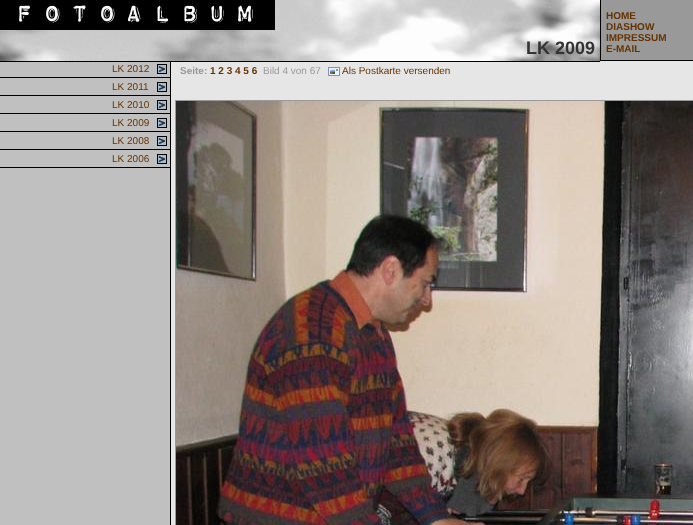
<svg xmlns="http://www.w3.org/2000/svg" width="693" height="525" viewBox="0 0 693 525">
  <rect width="100%" height="100%" fill="#ffffff"/>
  <image x="0" y="61" width="693" height="464" href="img1.png"/>
  <image x="0" y="0" width="600" height="61" href="img2.png"/>
  <rect x="0" y="61" width="600" height="1" fill="#000000"/>
  <text x="526" y="54" font-family="Liberation Sans" font-size="18" font-weight="bold" fill="#333333">LK 2009</text>
  <rect x="601" y="0" width="92" height="60" fill="#999999"/>
  <rect x="600" y="60" width="93" height="1" fill="#000000"/>
  <rect x="600" y="0" width="1" height="61" fill="#000000"/>
  <text x="606" y="19" font-family="Liberation Sans" font-size="10" font-weight="bold" fill="#663300">HOME</text>
  <text x="606" y="30" font-family="Liberation Sans" font-size="10" font-weight="bold" fill="#663300">DIASHOW</text>
  <text x="606" y="41" font-family="Liberation Sans" font-size="10" font-weight="bold" fill="#663300">IMPRESSUM</text>
  <text x="606" y="52" font-family="Liberation Sans" font-size="10" font-weight="bold" fill="#663300">E-MAIL</text>
  <rect x="0" y="77" width="170" height="1" fill="#000000"/>
  <text x="112" y="72" font-family="Liberation Sans" font-size="10" fill="#663300">LK 2012</text>
  <image x="157" y="64" width="10" height="10" href="img3.png"/>
  <rect x="0" y="95" width="170" height="1" fill="#000000"/>
  <text x="112" y="90" font-family="Liberation Sans" font-size="10" fill="#663300">LK 2011</text>
  <image x="157" y="82" width="10" height="10" href="img3.png"/>
  <rect x="0" y="113" width="170" height="1" fill="#000000"/>
  <text x="112" y="108" font-family="Liberation Sans" font-size="10" fill="#663300">LK 2010</text>
  <image x="157" y="100" width="10" height="10" href="img3.png"/>
  <rect x="0" y="131" width="170" height="1" fill="#000000"/>
  <text x="112" y="126" font-family="Liberation Sans" font-size="10" fill="#663300">LK 2009</text>
  <image x="157" y="118" width="10" height="10" href="img3.png"/>
  <rect x="0" y="149" width="170" height="1" fill="#000000"/>
  <text x="112" y="144" font-family="Liberation Sans" font-size="10" fill="#663300">LK 2008</text>
  <image x="157" y="136" width="10" height="10" href="img3.png"/>
  <rect x="0" y="167" width="170" height="1" fill="#000000"/>
  <text x="112" y="162" font-family="Liberation Sans" font-size="10" fill="#663300">LK 2006</text>
  <image x="157" y="154" width="10" height="10" href="img3.png"/>
  <text x="180" y="74" font-family="Liberation Sans" font-size="10" font-weight="bold" fill="#999999">Seite:</text>
  <text x="210" y="74" font-family="Liberation Sans" font-size="10" font-weight="bold" fill="#663300">1 2 3 4 5 6</text>
  <text x="263" y="74" font-family="Liberation Sans" font-size="10" fill="#999999">Bild 4 von 67</text>
  <image x="328" y="67" width="12" height="9" href="img4.png"/>
  <text x="342" y="74" font-family="Liberation Sans" font-size="10" fill="#663300">Als Postkarte versenden</text>
  <rect x="175.5" y="100.5" width="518" height="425" fill="none" stroke="#999999"/>
  <image x="176" y="101" width="517" height="424" href="img5.png"/>
</svg>
